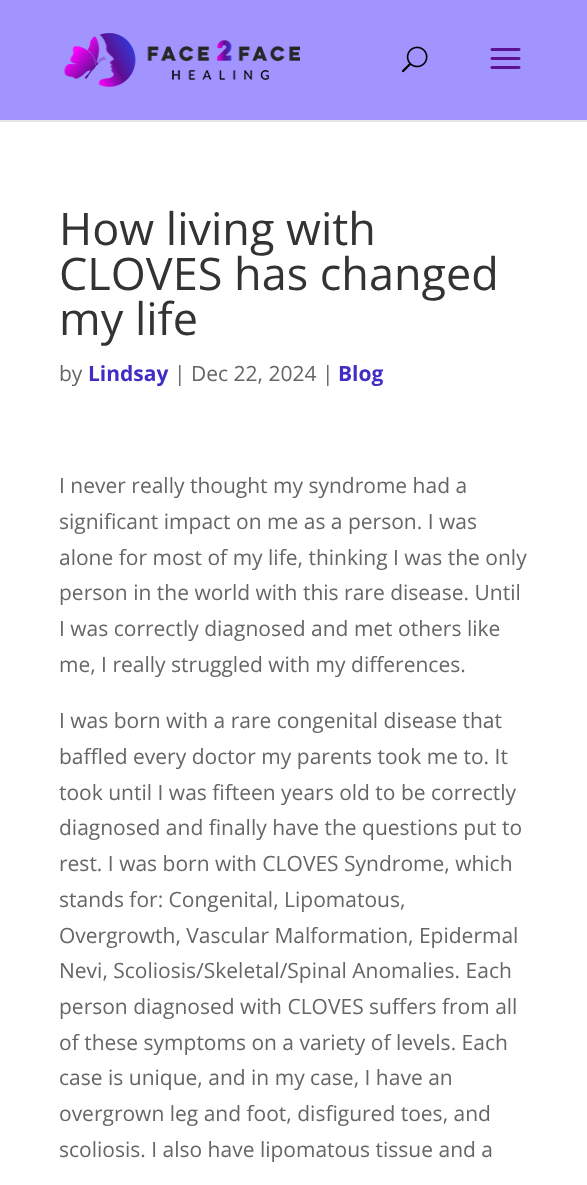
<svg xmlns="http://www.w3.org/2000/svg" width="587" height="1185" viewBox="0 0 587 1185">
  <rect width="100%" height="100%" fill="#ffffff"/>
  <rect x="0" y="120" width="587" height="2" fill="#e6e6e6"/>
  <rect x="0" y="0" width="587" height="120" fill="#a194fe"/>
  <image x="64" y="33" width="236" height="54" href="img1.png"/>
  <image x="401" y="46" width="27" height="27" href="img2.png"/>
  <image x="490" y="48" width="31" height="21" href="img3.png"/>
  <text x="59" y="245" font-family="Open Sans" font-size="45" fill="#333333">How living with</text>
  <text x="59" y="290" font-family="Open Sans" font-size="45" fill="#333333">CLOVES has changed</text>
  <text x="59" y="335" font-family="Open Sans" font-size="45" fill="#333333">my life</text>
  <text x="59" y="381" font-family="Open Sans" font-size="21" fill="#666666">by</text>
  <text x="88" y="381" font-family="Open Sans" font-size="21" font-weight="bold" fill="#3f2dc5">Lindsay</text>
  <text x="174" y="381" font-family="Open Sans" font-size="21" fill="#666666">| Dec 22, 2024 |</text>
  <text x="338" y="381" font-family="Open Sans" font-size="21" font-weight="bold" fill="#3f2dc5">Blog</text>
  <text x="59" y="493" font-family="Open Sans" font-size="21" fill="#666666">I never really thought my syndrome had a</text>
  <text x="59" y="529" font-family="Open Sans" font-size="21" fill="#666666">significant impact on me as a person. I was</text>
  <text x="59" y="565" font-family="Open Sans" font-size="21" fill="#666666">alone for most of my life, thinking I was the only</text>
  <text x="59" y="600" font-family="Open Sans" font-size="21" fill="#666666">person in the world with this rare disease. Until</text>
  <text x="59" y="636" font-family="Open Sans" font-size="21" fill="#666666">I was correctly diagnosed and met others like</text>
  <text x="59" y="672" font-family="Open Sans" font-size="21" fill="#666666">me, I really struggled with my differences.</text>
  <text x="59" y="728" font-family="Open Sans" font-size="21" fill="#666666">I was born with a rare congenital disease that</text>
  <text x="59" y="764" font-family="Open Sans" font-size="21" fill="#666666">baffled every doctor my parents took me to. It</text>
  <text x="59" y="800" font-family="Open Sans" font-size="21" fill="#666666">took until I was fifteen years old to be correctly</text>
  <text x="59" y="835" font-family="Open Sans" font-size="21" fill="#666666">diagnosed and finally have the questions put to</text>
  <text x="59" y="871" font-family="Open Sans" font-size="21" fill="#666666">rest. I was born with CLOVES Syndrome, which</text>
  <text x="59" y="907" font-family="Open Sans" font-size="21" fill="#666666">stands for: Congenital, Lipomatous,</text>
  <text x="59" y="943" font-family="Open Sans" font-size="21" fill="#666666">Overgrowth, Vascular Malformation, Epidermal</text>
  <text x="59" y="978" font-family="Open Sans" font-size="21" fill="#666666">Nevi, Scoliosis/Skeletal/Spinal Anomalies. Each</text>
  <text x="59" y="1014" font-family="Open Sans" font-size="21" fill="#666666">person diagnosed with CLOVES suffers from all</text>
  <text x="59" y="1050" font-family="Open Sans" font-size="21" fill="#666666">of these symptoms on a variety of levels. Each</text>
  <text x="59" y="1085" font-family="Open Sans" font-size="21" fill="#666666">case is unique, and in my case, I have an</text>
  <text x="59" y="1121" font-family="Open Sans" font-size="21" fill="#666666">overgrown leg and foot, disfigured toes, and</text>
  <text x="59" y="1157" font-family="Open Sans" font-size="21" fill="#666666">scoliosis. I also have lipomatous tissue and a</text>
</svg>
